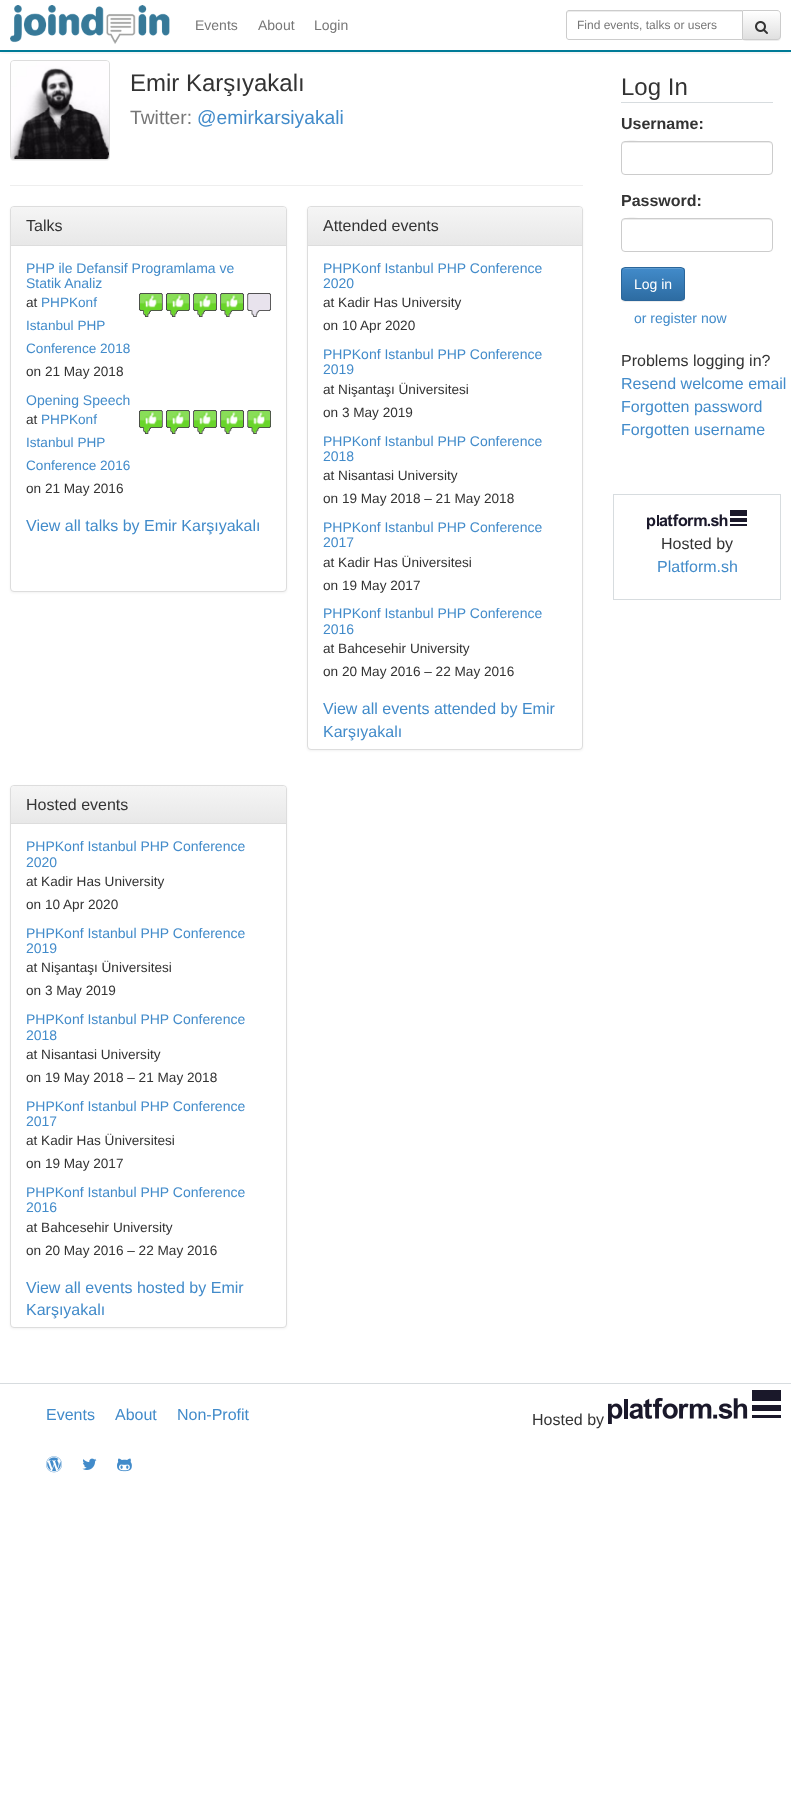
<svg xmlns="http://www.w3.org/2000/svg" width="791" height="1794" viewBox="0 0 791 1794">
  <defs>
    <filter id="blur1" x="-50%" y="-200%" width="200%" height="500%"><feGaussianBlur stdDeviation="0.5"/></filter>
    <clipPath id="clip1"><rect x="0" y="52" width="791" height="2"/></clipPath>
    <filter id="blur2" x="-50%" y="-200%" width="200%" height="500%"><feGaussianBlur stdDeviation="2.5"/></filter>
    <clipPath id="clip2"><path d="M742 10H777C779 10 781 12 781 14V36C781 38 779 40 777 40H742Z"/></clipPath>
    <linearGradient id="g1" gradientUnits="userSpaceOnUse" x1="762" y1="11" x2="762" y2="39"><stop offset="0" stop-color="#ffffff"/><stop offset="1" stop-color="#e0e0e0"/></linearGradient>
    <filter id="blur3" x="-50%" y="-200%" width="200%" height="500%"><feGaussianBlur stdDeviation="1"/></filter>
    <linearGradient id="g2" gradientUnits="userSpaceOnUse" x1="149" y1="207" x2="149" y2="245"><stop offset="0" stop-color="#f5f5f5"/><stop offset="1" stop-color="#e8e8e8"/></linearGradient>
    <linearGradient id="g3" gradientUnits="userSpaceOnUse" x1="445" y1="207" x2="445" y2="245"><stop offset="0" stop-color="#f5f5f5"/><stop offset="1" stop-color="#e8e8e8"/></linearGradient>
    <linearGradient id="g4" gradientUnits="userSpaceOnUse" x1="149" y1="786" x2="149" y2="823"><stop offset="0" stop-color="#f5f5f5"/><stop offset="1" stop-color="#e8e8e8"/></linearGradient>
    <clipPath id="clip3"><rect x="621" y="267" width="64" height="34" rx="4"/></clipPath>
    <linearGradient id="g5" gradientUnits="userSpaceOnUse" x1="653" y1="268" x2="653" y2="300"><stop offset="0" stop-color="#428bca"/><stop offset="1" stop-color="#2d6ca2"/></linearGradient>
  </defs>
  <rect width="100%" height="100%" fill="#ffffff"/>
  <rect x="10" y="61" width="100" height="100" rx="4" fill="#000000" fill-opacity="0.05" filter="url(#blur1)"/>
  <rect x="10.5" y="60.5" width="99" height="99" rx="3.5" fill="none" stroke="#dddddd"/>
  <image x="11" y="61" width="98" height="98" href="img3.png"/>
  <g clip-path="url(#clip1)">
    <rect x="0" y="1" width="791" height="52" fill="#000000" fill-opacity="0.07" filter="url(#blur2)"/>
  </g>
  <rect x="0" y="50" width="791" height="2" fill="#007b97"/>
  <image x="10" y="5" width="160" height="39" href="img1.png"/>
  <text x="195" y="30" font-family="Liberation Sans" font-size="14" fill="#777777">Events</text>
  <text x="258" y="30" font-family="Liberation Sans" font-size="14" fill="#777777">About</text>
  <text x="314" y="30" font-family="Liberation Sans" font-size="14" fill="#777777">Login</text>
  <rect x="742" y="11" width="39" height="30" rx="4" fill="#000000" fill-opacity="0.07" filter="url(#blur1)"/>
  <g clip-path="url(#clip2)">
    <rect x="743" y="11" width="38" height="28" fill="url(#g1)"/>
  </g>
  <path d="M742.5 10.5H777C779 10.5 780.5 12 780.5 14V36C780.5 38 779 39.5 777 39.5H742.5Z" fill="none" stroke="#cccccc"/>
  <path d="M569 10H743V40H569C567.5 40 566 38.5 566 37V13C566 11.5 567.5 10 569 10Z" fill="#ffffff"/>
  <path d="M569 12H742V11H568C567 12 567 13 567 14C567 13 568 12 569 12Z" fill="#ececec"/>
  <path d="M569 10.5H742.5V39.5H569C567.5 39.5 566.5 38.5 566.5 37V13C566.5 11.5 567.5 10.5 569 10.5Z" fill="none" stroke="#cccccc"/>
  <text x="577" y="29" font-family="Liberation Sans" font-size="12" fill="#777777">Find events, talks or users</text>
  <image x="755" y="21" width="13" height="13" href="img2.png"/>
  <rect x="10" y="185" width="573" height="1" fill="#eeeeee"/>
  <text x="130" y="91" font-family="Liberation Sans" font-size="24" fill="#333333">Emir Karşıyakalı</text>
  <text x="130" y="124" font-family="Liberation Sans" font-size="19.25" fill="#777777">Twitter:</text>
  <text x="197" y="124" font-family="Liberation Sans" font-size="19.25" fill="#428bca">@emirkarsiyakali</text>
  <rect x="10" y="207" width="277" height="386" rx="4" fill="#000000" fill-opacity="0.05" filter="url(#blur3)"/>
  <rect x="10.5" y="206.5" width="276" height="385" rx="3.5" fill="#ffffff" stroke="#dddddd"/>
  <path d="M14 207H283C284.5 207 286 208.5 286 210V245H11V210C11 208.5 12.5 207 14 207Z" fill="url(#g2)"/>
  <rect x="11" y="245" width="275" height="1" fill="#dddddd"/>
  <text x="26" y="231" font-family="Liberation Sans" font-size="16" fill="#333333">Talks</text>
  <text x="26" y="273" font-family="Liberation Sans" font-size="14" fill="#428bca">PHP ile Defansif Programlama ve</text>
  <text x="26" y="288" font-family="Liberation Sans" font-size="14" fill="#428bca">Statik Analiz</text>
  <text x="26" y="307" font-family="Liberation Sans" font-size="13.6" fill="#333333">at</text>
  <text x="41" y="307" font-family="Liberation Sans" font-size="13.6" fill="#428bca">PHPKonf</text>
  <image x="139" y="293" width="132" height="24" href="img4.png"/>
  <text x="26" y="330" font-family="Liberation Sans" font-size="13.6" fill="#428bca">Istanbul PHP</text>
  <text x="26" y="353" font-family="Liberation Sans" font-size="13.6" fill="#428bca">Conference 2018</text>
  <text x="26" y="376" font-family="Liberation Sans" font-size="13.6" fill="#333333">on 21 May 2018</text>
  <text x="26" y="405" font-family="Liberation Sans" font-size="14" fill="#428bca">Opening Speech</text>
  <text x="26" y="424" font-family="Liberation Sans" font-size="13.6" fill="#333333">at</text>
  <text x="41" y="424" font-family="Liberation Sans" font-size="13.6" fill="#428bca">PHPKonf</text>
  <image x="139" y="410" width="132" height="24" href="img5.png"/>
  <text x="26" y="447" font-family="Liberation Sans" font-size="13.6" fill="#428bca">Istanbul PHP</text>
  <text x="26" y="470" font-family="Liberation Sans" font-size="13.6" fill="#428bca">Conference 2016</text>
  <text x="26" y="493" font-family="Liberation Sans" font-size="13.6" fill="#333333">on 21 May 2016</text>
  <text x="26" y="531" font-family="Liberation Sans" font-size="16" fill="#428bca">View all talks by Emir Karşıyakalı</text>
  <rect x="307" y="207" width="276" height="544" rx="4" fill="#000000" fill-opacity="0.05" filter="url(#blur3)"/>
  <rect x="307.5" y="206.5" width="275" height="543" rx="3.5" fill="#ffffff" stroke="#dddddd"/>
  <path d="M311 207H579C580.5 207 582 208.5 582 210V245H308V210C308 208.5 309.5 207 311 207Z" fill="url(#g3)"/>
  <rect x="308" y="245" width="274" height="1" fill="#dddddd"/>
  <text x="323" y="231" font-family="Liberation Sans" font-size="16" fill="#333333">Attended events</text>
  <text x="323" y="273" font-family="Liberation Sans" font-size="14" fill="#428bca">PHPKonf Istanbul PHP Conference</text>
  <text x="323" y="288" font-family="Liberation Sans" font-size="14" fill="#428bca">2020</text>
  <text x="323" y="307" font-family="Liberation Sans" font-size="13.6" fill="#333333">at Kadir Has University</text>
  <text x="323" y="330" font-family="Liberation Sans" font-size="13.6" fill="#333333">on 10 Apr 2020</text>
  <text x="323" y="359" font-family="Liberation Sans" font-size="14" fill="#428bca">PHPKonf Istanbul PHP Conference</text>
  <text x="323" y="374" font-family="Liberation Sans" font-size="14" fill="#428bca">2019</text>
  <text x="323" y="394" font-family="Liberation Sans" font-size="13.6" fill="#333333">at Nişantaşı Üniversitesi</text>
  <text x="323" y="417" font-family="Liberation Sans" font-size="13.6" fill="#333333">on 3 May 2019</text>
  <text x="323" y="446" font-family="Liberation Sans" font-size="14" fill="#428bca">PHPKonf Istanbul PHP Conference</text>
  <text x="323" y="461" font-family="Liberation Sans" font-size="14" fill="#428bca">2018</text>
  <text x="323" y="480" font-family="Liberation Sans" font-size="13.6" fill="#333333">at Nisantasi University</text>
  <text x="323" y="503" font-family="Liberation Sans" font-size="13.6" fill="#333333">on 19 May 2018 – 21 May 2018</text>
  <text x="323" y="532" font-family="Liberation Sans" font-size="14" fill="#428bca">PHPKonf Istanbul PHP Conference</text>
  <text x="323" y="547" font-family="Liberation Sans" font-size="14" fill="#428bca">2017</text>
  <text x="323" y="567" font-family="Liberation Sans" font-size="13.6" fill="#333333">at Kadir Has Üniversitesi</text>
  <text x="323" y="590" font-family="Liberation Sans" font-size="13.6" fill="#333333">on 19 May 2017</text>
  <text x="323" y="618" font-family="Liberation Sans" font-size="14" fill="#428bca">PHPKonf Istanbul PHP Conference</text>
  <text x="323" y="634" font-family="Liberation Sans" font-size="14" fill="#428bca">2016</text>
  <text x="323" y="653" font-family="Liberation Sans" font-size="13.6" fill="#333333">at Bahcesehir University</text>
  <text x="323" y="676" font-family="Liberation Sans" font-size="13.6" fill="#333333">on 20 May 2016 – 22 May 2016</text>
  <text x="323" y="714" font-family="Liberation Sans" font-size="16" fill="#428bca">View all events attended by Emir</text>
  <text x="323" y="737" font-family="Liberation Sans" font-size="16" fill="#428bca">Karşıyakalı</text>
  <rect x="10" y="786" width="277" height="543" rx="4" fill="#000000" fill-opacity="0.05" filter="url(#blur3)"/>
  <rect x="10.5" y="785.5" width="276" height="542" rx="3.5" fill="#ffffff" stroke="#dddddd"/>
  <path d="M14 786H283C284.5 786 286 787.5 286 789V823H11V789C11 787.5 12.5 786 14 786Z" fill="url(#g4)"/>
  <rect x="11" y="823" width="275" height="1" fill="#dddddd"/>
  <text x="26" y="810" font-family="Liberation Sans" font-size="16" fill="#333333">Hosted events</text>
  <text x="26" y="851" font-family="Liberation Sans" font-size="14" fill="#428bca">PHPKonf Istanbul PHP Conference</text>
  <text x="26" y="867" font-family="Liberation Sans" font-size="14" fill="#428bca">2020</text>
  <text x="26" y="886" font-family="Liberation Sans" font-size="13.6" fill="#333333">at Kadir Has University</text>
  <text x="26" y="909" font-family="Liberation Sans" font-size="13.6" fill="#333333">on 10 Apr 2020</text>
  <text x="26" y="938" font-family="Liberation Sans" font-size="14" fill="#428bca">PHPKonf Istanbul PHP Conference</text>
  <text x="26" y="953" font-family="Liberation Sans" font-size="14" fill="#428bca">2019</text>
  <text x="26" y="972" font-family="Liberation Sans" font-size="13.6" fill="#333333">at Nişantaşı Üniversitesi</text>
  <text x="26" y="995" font-family="Liberation Sans" font-size="13.6" fill="#333333">on 3 May 2019</text>
  <text x="26" y="1024" font-family="Liberation Sans" font-size="14" fill="#428bca">PHPKonf Istanbul PHP Conference</text>
  <text x="26" y="1040" font-family="Liberation Sans" font-size="14" fill="#428bca">2018</text>
  <text x="26" y="1059" font-family="Liberation Sans" font-size="13.6" fill="#333333">at Nisantasi University</text>
  <text x="26" y="1082" font-family="Liberation Sans" font-size="13.6" fill="#333333">on 19 May 2018 – 21 May 2018</text>
  <text x="26" y="1111" font-family="Liberation Sans" font-size="14" fill="#428bca">PHPKonf Istanbul PHP Conference</text>
  <text x="26" y="1126" font-family="Liberation Sans" font-size="14" fill="#428bca">2017</text>
  <text x="26" y="1145" font-family="Liberation Sans" font-size="13.6" fill="#333333">at Kadir Has Üniversitesi</text>
  <text x="26" y="1168" font-family="Liberation Sans" font-size="13.6" fill="#333333">on 19 May 2017</text>
  <text x="26" y="1197" font-family="Liberation Sans" font-size="14" fill="#428bca">PHPKonf Istanbul PHP Conference</text>
  <text x="26" y="1212" font-family="Liberation Sans" font-size="14" fill="#428bca">2016</text>
  <text x="26" y="1232" font-family="Liberation Sans" font-size="13.6" fill="#333333">at Bahcesehir University</text>
  <text x="26" y="1255" font-family="Liberation Sans" font-size="13.6" fill="#333333">on 20 May 2016 – 22 May 2016</text>
  <text x="26" y="1293" font-family="Liberation Sans" font-size="16" fill="#428bca">View all events hosted by Emir</text>
  <text x="26" y="1315" font-family="Liberation Sans" font-size="16" fill="#428bca">Karşıyakalı</text>
  <rect x="621" y="102" width="152" height="1" fill="#d7dcdf"/>
  <text x="621" y="95" font-family="Liberation Sans" font-size="24" fill="#333333">Log In</text>
  <text x="621" y="129" font-family="Liberation Sans" font-size="16" font-weight="bold" fill="#333333">Username:</text>
  <path d="M625 143H769C771 143 772 144 772 146C772 144 772 143 770 142H649C641 142 622 137 622 146C622 144 623 143 625 143Z" fill="#ececec"/>
  <rect x="621.5" y="141.5" width="151" height="33" rx="3.5" fill="none" stroke="#cccccc"/>
  <text x="621" y="206" font-family="Liberation Sans" font-size="16" font-weight="bold" fill="#333333">Password:</text>
  <path d="M625 220H769C771 220 772 221 772 223C772 221 772 220 770 219H649C641 219 622 214 622 223C622 221 623 220 625 220Z" fill="#ececec"/>
  <rect x="621.5" y="218.5" width="151" height="33" rx="3.5" fill="none" stroke="#cccccc"/>
  <rect x="621" y="268" width="64" height="34" rx="4" fill="#000000" fill-opacity="0.07" filter="url(#blur1)"/>
  <g clip-path="url(#clip3)">
    <rect x="621" y="268" width="64" height="32" fill="url(#g5)"/>
  </g>
  <path d="M625 269H681C683 269 684 270 684 272C684 266 676 268 672 268H634C630 268 622 266 622 272C622 270 623 269 625 269Z" fill="#5e9cd1"/>
  <rect x="621.5" y="267.5" width="63" height="33" rx="3.5" fill="none" stroke="#2b669a"/>
  <text x="634" y="289" font-family="Liberation Sans" font-size="14" fill="#ffffff">Log in</text>
  <text x="634" y="323" font-family="Liberation Sans" font-size="14" fill="#428bca">or register now</text>
  <text x="621" y="366" font-family="Liberation Sans" font-size="16" fill="#333333">Problems logging in?</text>
  <text x="621" y="389" font-family="Liberation Sans" font-size="16" fill="#428bca">Resend welcome email</text>
  <text x="621" y="412" font-family="Liberation Sans" font-size="16" fill="#428bca">Forgotten password</text>
  <text x="621" y="435" font-family="Liberation Sans" font-size="16" fill="#428bca">Forgotten username</text>
  <rect x="613.5" y="494.5" width="167" height="105" fill="none" stroke="#d7dcdf"/>
  <image x="647" y="510" width="100" height="20" href="img6.png"/>
  <text x="661" y="549" font-family="Liberation Sans" font-size="16" fill="#333333">Hosted by</text>
  <text x="657" y="572" font-family="Liberation Sans" font-size="16" fill="#428bca">Platform.sh</text>
  <rect x="0" y="1383" width="791" height="1" fill="#d7dcdf"/>
  <text x="46" y="1420" font-family="Liberation Sans" font-size="16" fill="#428bca">Events</text>
  <text x="115" y="1420" font-family="Liberation Sans" font-size="16" fill="#428bca">About</text>
  <text x="177" y="1420" font-family="Liberation Sans" font-size="16" fill="#428bca">Non-Profit</text>
  <image x="46" y="1456" width="16" height="17" href="img7.png"/>
  <image x="82" y="1458" width="15" height="12" href="img8.png"/>
  <image x="117" y="1458" width="15" height="14" href="img9.png"/>
  <text x="532" y="1425" font-family="Liberation Sans" font-size="16" fill="#333333">Hosted by</text>
  <image x="608" y="1390" width="173" height="34" href="img10.png"/>
</svg>
